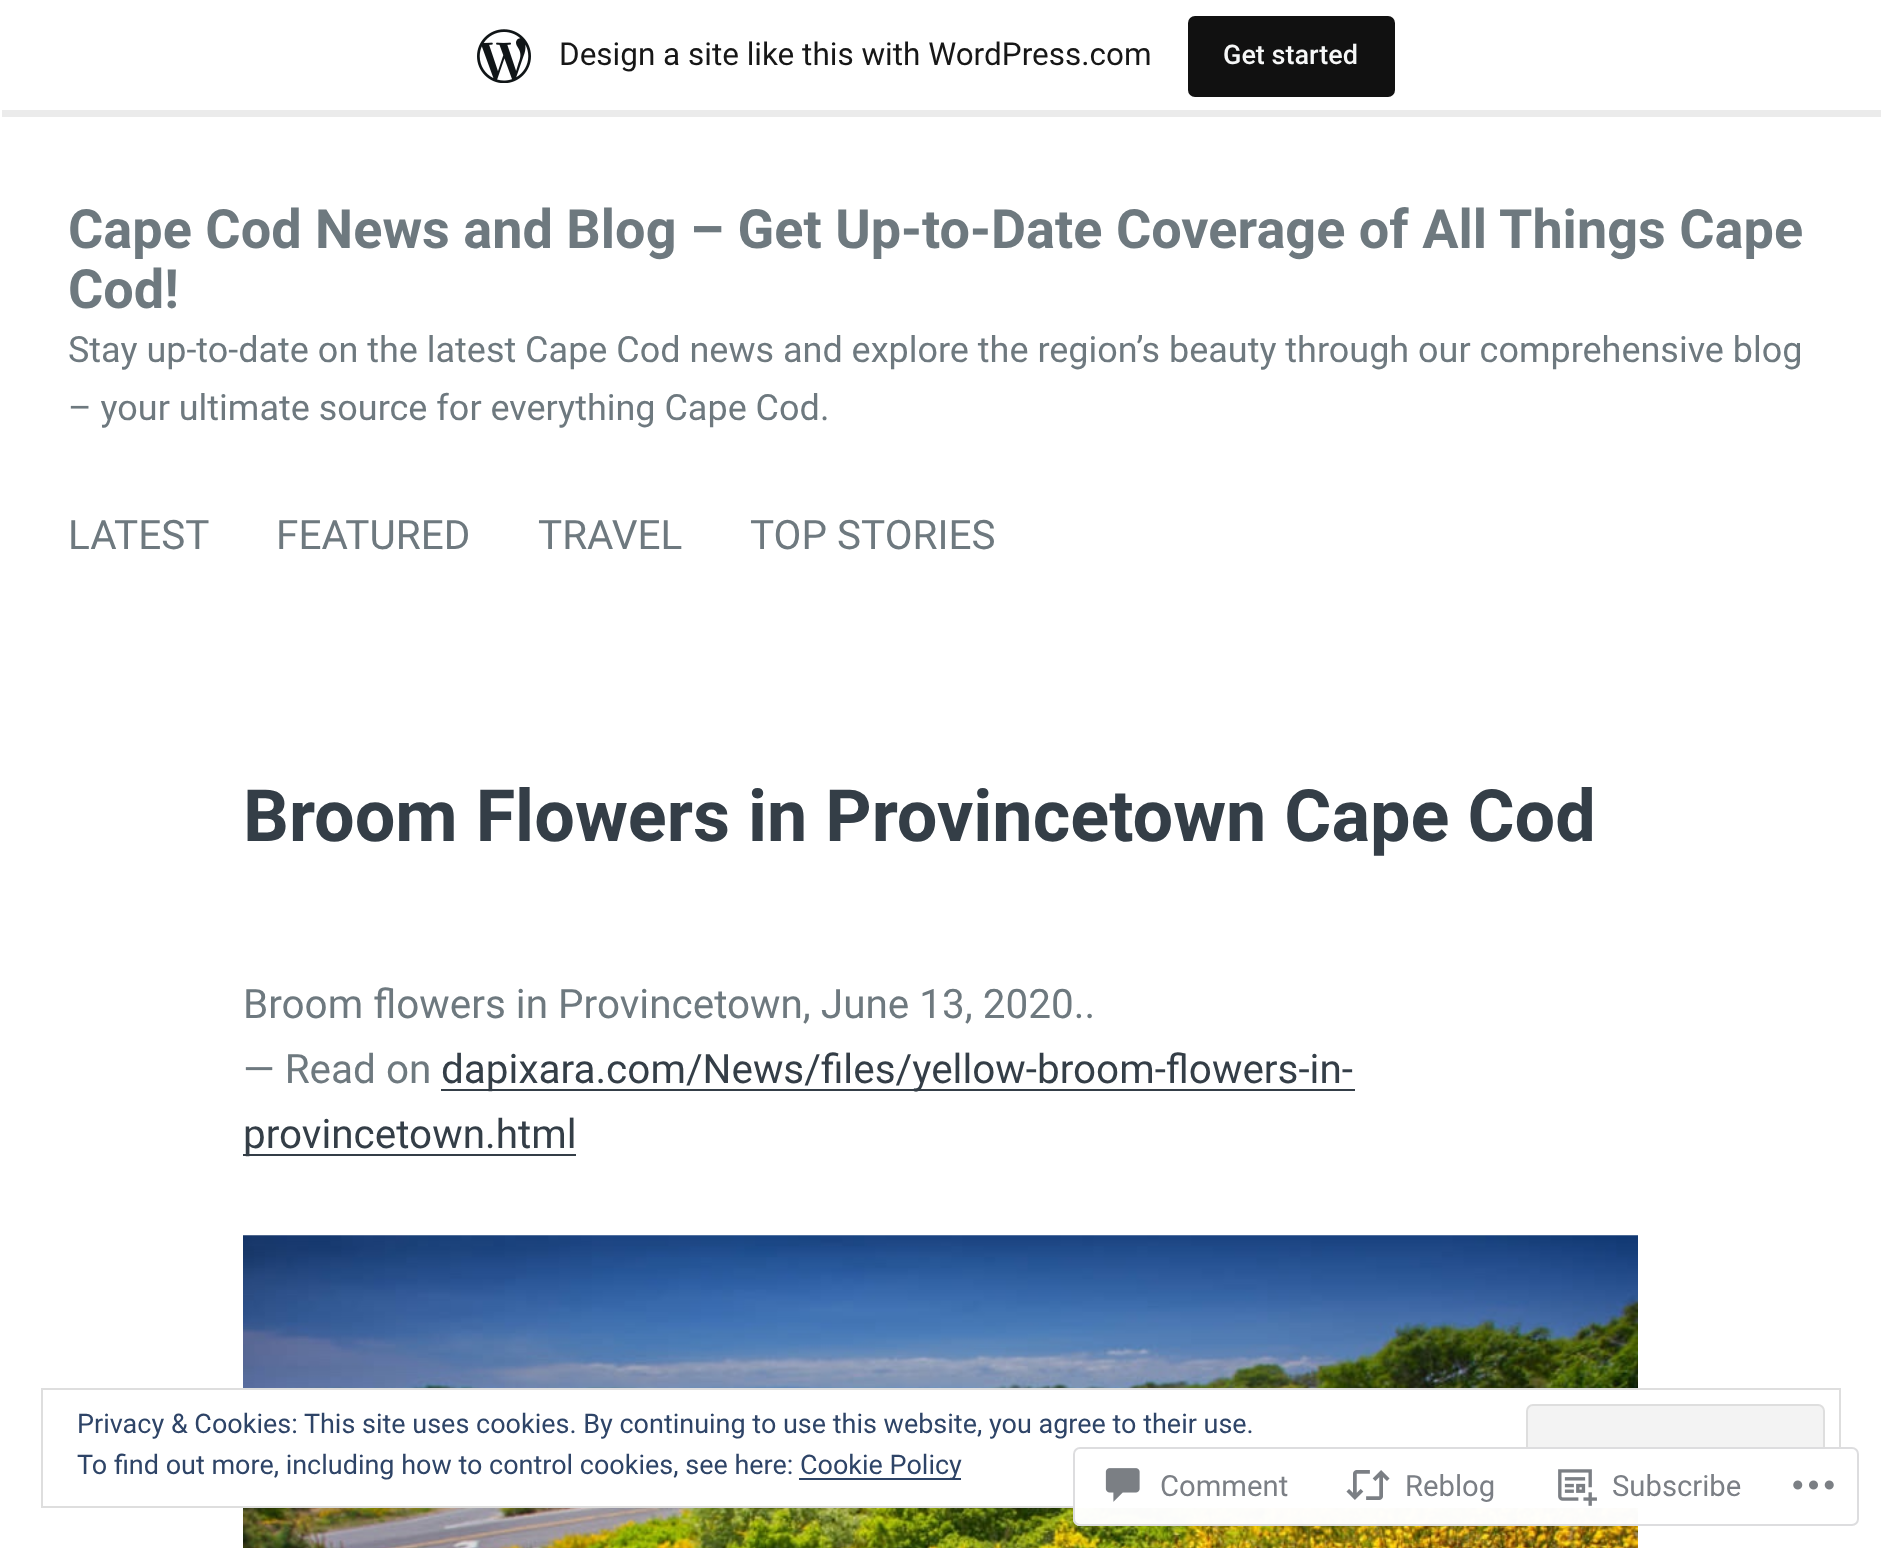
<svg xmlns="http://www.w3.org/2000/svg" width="1881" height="1548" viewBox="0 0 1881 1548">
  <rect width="100%" height="100%" fill="#ffffff"/>
  <path d="M2 110V117H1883V7H1881V110Z" fill="#000000" fill-opacity="0.08"/>
  <image x="477" y="29" width="54" height="54" href="img1.png"/>
  <text x="559" y="65" font-family="Roboto" font-size="31.5" fill="#171717">Design a site like this with WordPress.com</text>
  <rect x="1188" y="16" width="207" height="81" rx="7" fill="#111111"/>
  <text x="1223" y="64" font-family="Roboto" font-size="27" font-weight="500" fill="#f6f7f7">Get started</text>
  <text x="68" y="248" font-family="Roboto" font-size="54" font-weight="bold" fill="#6e797f">Cape Cod News and Blog – Get Up-to-Date Coverage of All Things Cape</text>
  <text x="68" y="308" font-family="Roboto" font-size="54" font-weight="bold" fill="#6e797f">Cod!</text>
  <text x="68" y="362" font-family="Roboto" font-size="36" fill="#6e797f">Stay up-to-date on the latest Cape Cod news and explore the region’s beauty through our comprehensive blog</text>
  <text x="68" y="420" font-family="Roboto" font-size="36" fill="#6e797f">– your ultimate source for everything Cape Cod.</text>
  <text x="68" y="549" font-family="Roboto" font-size="40.5" fill="#6e797f">LATEST</text>
  <text x="276" y="549" font-family="Roboto" font-size="40.5" fill="#6e797f">FEATURED</text>
  <text x="538" y="549" font-family="Roboto" font-size="40.5" fill="#6e797f">TRAVEL</text>
  <text x="750" y="549" font-family="Roboto" font-size="40.5" fill="#6e797f">TOP STORIES</text>
  <text x="243" y="841" font-family="Roboto" font-size="72" font-weight="bold" fill="#343e47">Broom Flowers in Provincetown Cape Cod</text>
  <text x="243" y="1018" font-family="Roboto" font-size="40.5" fill="#6e797f">Broom flowers in Provincetown, June 13, 2020..</text>
  <text x="243" y="1083" font-family="Roboto" font-size="40.5" fill="#6e797f">— Read on</text>
  <rect x="441" y="1089" width="914" height="2" fill="#343e47"/>
  <text x="441" y="1083" font-family="Roboto" font-size="40.5" fill="#343e47">dapixara.com/News/files/yellow-broom-flowers-in-</text>
  <rect x="243" y="1154" width="333" height="2" fill="#343e47"/>
  <text x="243" y="1148" font-family="Roboto" font-size="40.5" fill="#343e47">provincetown.html</text>
  <image x="243" y="1235" width="1395" height="313" href="img2.png"/>
  <rect x="243" y="1390" width="1395" height="116" fill="#ffffff"/>
  <rect x="42" y="1389" width="1798" height="118" fill="none" stroke="#dedede" stroke-width="2"/>
  <text x="77" y="1433" font-family="Roboto" font-size="27" fill="#2e4467">Privacy &amp; Cookies: This site uses cookies. By continuing to use this website, you agree to their use.</text>
  <rect x="1527" y="1405" width="297" height="86" rx="6" fill="#f3f3f3" stroke="#dedede" stroke-width="2"/>
  <text x="77" y="1474" font-family="Roboto" font-size="27" fill="#2e4467">To find out more, including how to control cookies, see here:</text>
  <rect x="799" y="1478" width="162" height="2" fill="#2e4467"/>
  <text x="800" y="1474" font-family="Roboto" font-size="27" fill="#2e4467">Cookie Policy</text>
  <rect x="1073" y="1447" width="786" height="79" rx="7" fill="#ffffff" fill-opacity="0.98"/>
  <rect x="1074" y="1448" width="784" height="77" rx="6" fill="none" stroke="#dcdcde" stroke-opacity="0.98" stroke-width="2"/>
  <image x="1105" y="1468" width="35" height="34" href="img3.png"/>
  <text x="1160" y="1496" font-family="Roboto" font-size="29.25" fill="#7b7f85">Comment</text>
  <image x="1346" y="1470" width="44" height="30" href="img4.png"/>
  <text x="1405" y="1496" font-family="Roboto" font-size="29.25" fill="#7b7f85">Reblog</text>
  <image x="1558" y="1469" width="39" height="37" href="img5.png"/>
  <text x="1612" y="1496" font-family="Roboto" font-size="29.25" fill="#7b7f85">Subscribe</text>
  <image x="1793" y="1480" width="41" height="10" href="img6.png"/>
</svg>
